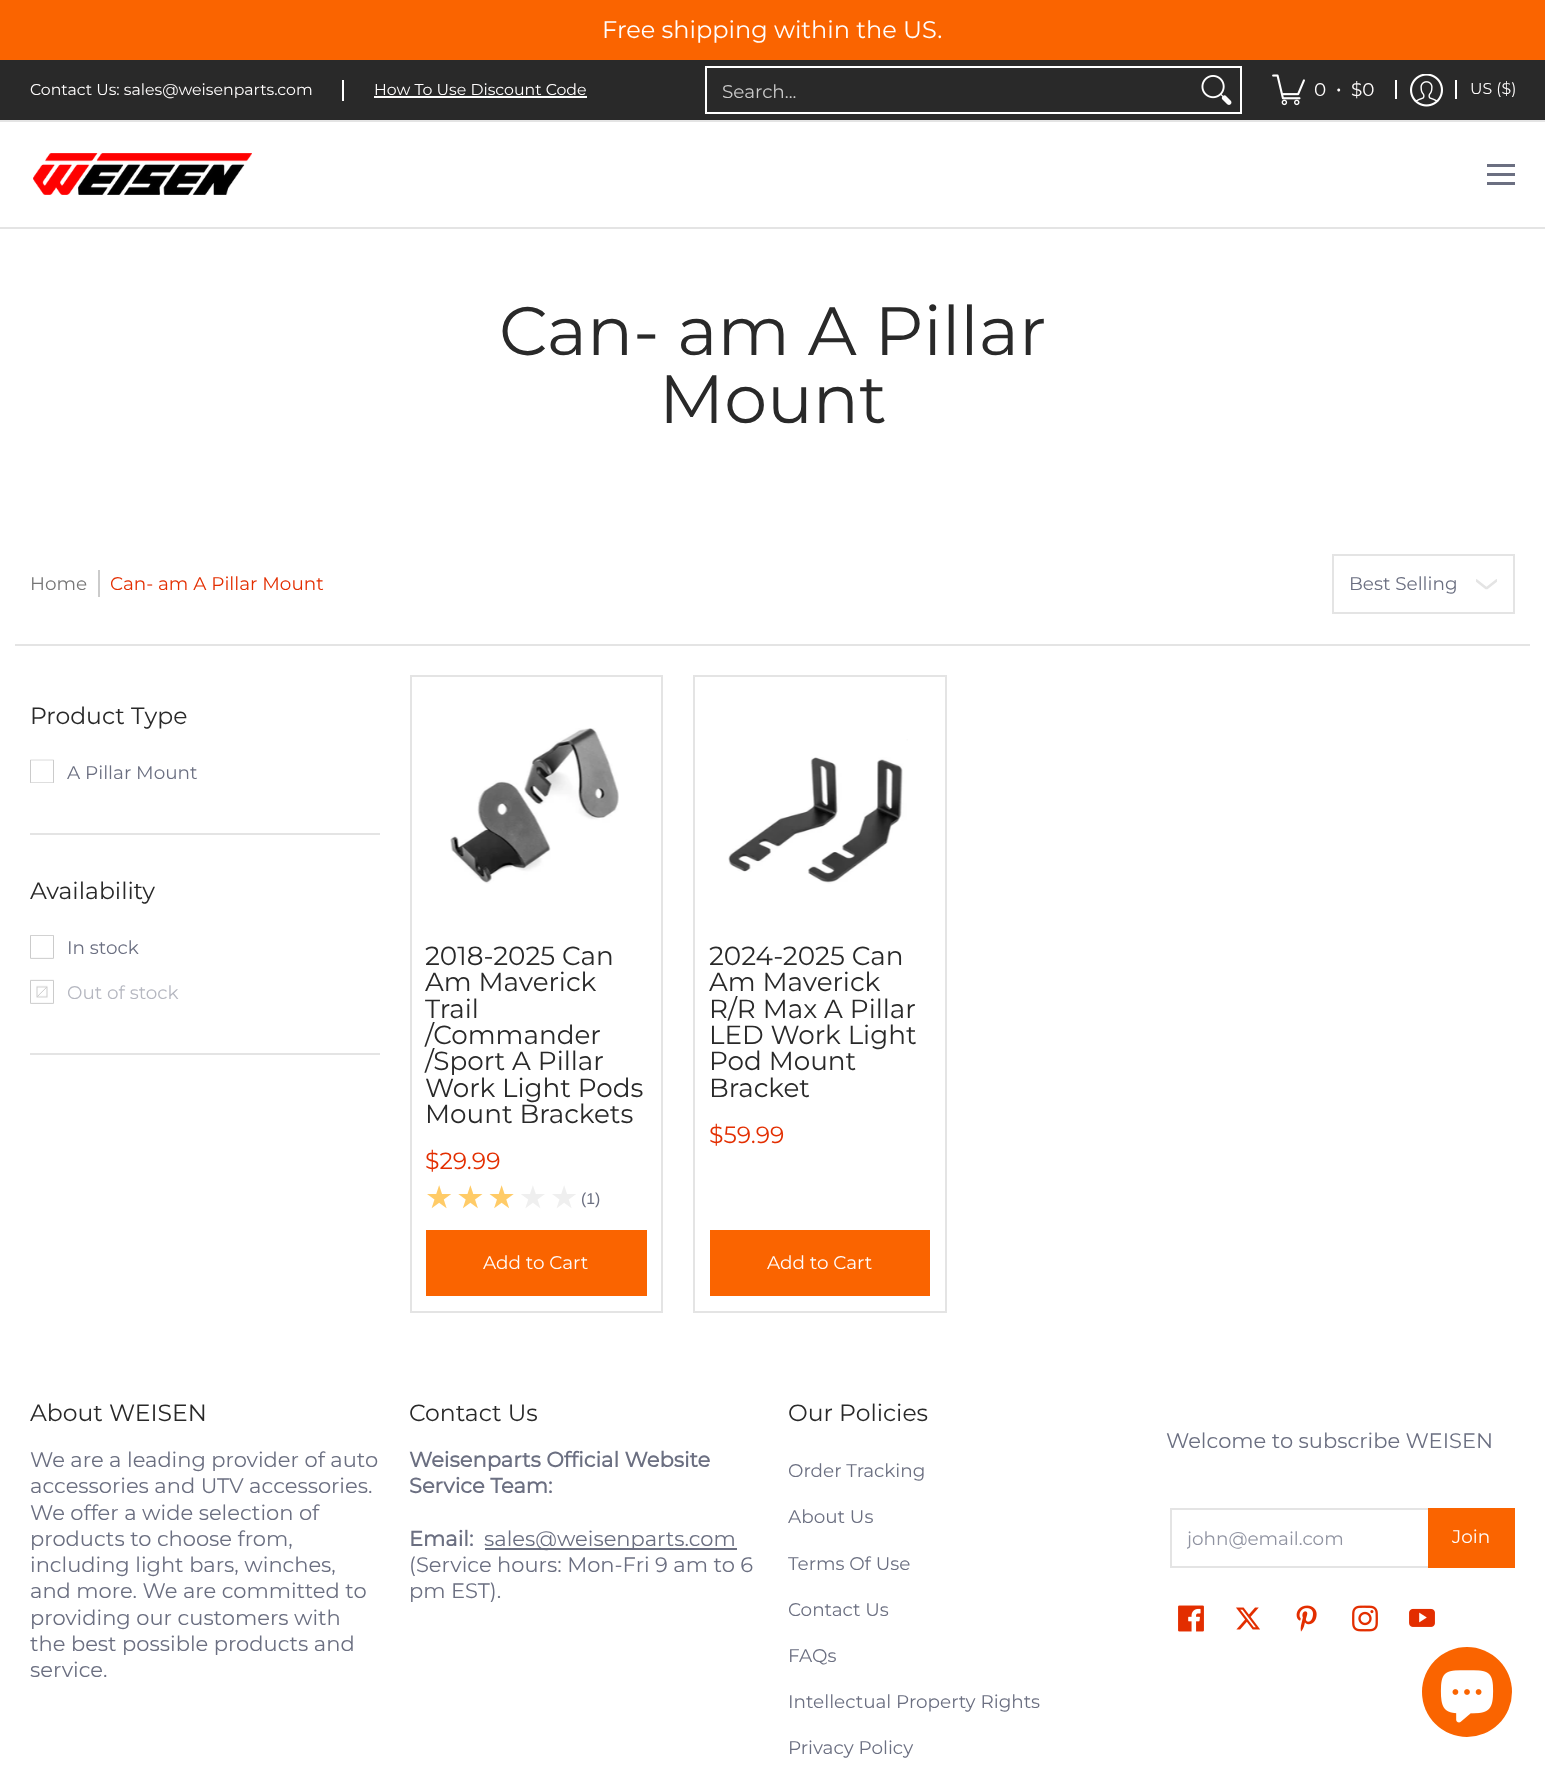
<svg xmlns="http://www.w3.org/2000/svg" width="1545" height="1768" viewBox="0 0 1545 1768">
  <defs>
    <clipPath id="clip1"><rect x="1476" y="573" width="21" height="21"/></clipPath>
    <linearGradient id="g1" gradientUnits="userSpaceOnUse" x1="425" y1="1198" x2="581" y2="1198"><stop offset="0.6" stop-color="#ffcb67"/><stop offset="0.6" stop-color="#efefef"/></linearGradient>
    <clipPath id="clip2"><rect x="1187" y="1527" width="226" height="23"/></clipPath>
  </defs>
  <rect width="100%" height="100%" fill="#ffffff"/>
  <rect x="0" y="0" width="1545" height="60" fill="#fa6400"/>
  <text x="602" y="38" font-family="Montserrat" font-size="24" fill="#fffdfd">Free shipping within the US.</text>
  <rect x="0" y="60" width="1545" height="60" fill="#292929"/>
  <rect x="0" y="120" width="1545" height="2" fill="#e4e4e4"/>
  <text x="30" y="95" font-family="Montserrat" font-size="15.75" fill="#fffdfd">Contact Us: sales@weisenparts.com</text>
  <rect x="342" y="80" width="2" height="21" fill="#ffffff"/>
  <text x="374" y="95" font-family="Montserrat" font-size="15.75" fill="#fffdfd">How To Use Discount Code</text>
  <rect x="374" y="96" width="213" height="2" fill="#ffffff"/>
  <rect x="706" y="67" width="535" height="46" fill="none" stroke="#ffffff" stroke-width="2"/>
  <text x="722" y="98" font-family="Montserrat" font-size="18.4" fill="#cacaca">Search...</text>
  <image x="1201" y="75" width="31" height="30" href="img1.png"/>
  <image x="1272" y="74" width="33" height="32" href="img2.png"/>
  <text x="1314" y="96" font-family="Montserrat" font-size="18.4" fill="#fffdfd">0</text>
  <text x="1336" y="95" font-family="Montserrat" font-size="18.4" fill="#fffdfd">•</text>
  <text x="1351" y="96" font-family="Montserrat" font-size="18.4" fill="#fffdfd">$0</text>
  <rect x="1395" y="80" width="2" height="19" fill="#ffffff"/>
  <image x="1410" y="74" width="33" height="33" href="img3.png"/>
  <rect x="1455" y="80" width="2" height="19" fill="#ffffff"/>
  <text x="1470" y="94" font-family="Montserrat" font-size="15.75" fill="#fffdfd">US ($)</text>
  <rect x="0" y="227" width="1545" height="2" fill="#e4e4e4"/>
  <image x="33" y="153" width="219" height="42" href="img4.png"/>
  <rect x="1487" y="164" width="28" height="3" fill="#6b6f81"/>
  <rect x="1487" y="182" width="28" height="3" fill="#6b6f81"/>
  <rect x="1487" y="173" width="28" height="3" fill="#6b6f81"/>
  <text x="499" y="355" font-family="Montserrat" font-size="68.25" fill="#292929">Can- am A Pillar</text>
  <text x="659" y="423" font-family="Montserrat" font-size="68.25" fill="#292929">Mount</text>
  <rect x="15" y="644" width="1515" height="2" fill="#e4e4e4"/>
  <text x="30" y="590" font-family="Montserrat" font-size="18.4" fill="#767676">Home</text>
  <rect x="98" y="570" width="2" height="27" fill="#cbcbcb"/>
  <text x="110" y="590" font-family="Montserrat" font-size="18.4" fill="#e32e00">Can- am A Pillar Mount</text>
  <rect x="1333" y="555" width="181" height="58" fill="none" stroke="#e4e4e4" stroke-width="2"/>
  <text x="1349" y="590" font-family="Montserrat" font-size="18.4" fill="#6b6f81">Best Selling</text>
  <g clip-path="url(#clip1)">
    <path d="M1476.5 580.5L1486 588H1487L1496.5 580.5" fill="none" stroke="#e4e4e4" stroke-width="2.6" stroke-linecap="round" stroke-linejoin="round"/>
  </g>
  <rect x="30" y="833" width="350" height="2" fill="#e4e4e4"/>
  <text x="30" y="724" font-family="Montserrat" font-size="23.5" fill="#292929">Product Type</text>
  <image x="30" y="759" width="24" height="24" href="img5.png"/>
  <text x="67" y="779" font-family="Montserrat" font-size="18.4" fill="#6b6f81">A Pillar Mount</text>
  <rect x="30" y="1053" width="350" height="2" fill="#e4e4e4"/>
  <text x="30" y="899" font-family="Montserrat" font-size="23.5" fill="#292929">Availability</text>
  <image x="30" y="935" width="24" height="24" href="img6.png"/>
  <text x="67" y="954" font-family="Montserrat" font-size="18.4" fill="#6b6f81">In stock</text>
  <image x="30" y="979" width="24" height="25" href="img7.png"/>
  <image x="36" y="985" width="12" height="13" href="img8.png"/>
  <text x="67" y="999" font-family="Montserrat" font-size="18.4" fill="#b5b7c0">Out of stock</text>
  <rect x="411" y="676" width="251" height="636" fill="none" stroke="#e4e4e4" stroke-width="2"/>
  <image x="450" y="728" width="169" height="156" href="img9.png"/>
  <text x="425" y="965" font-family="Montserrat" font-size="26.25" fill="#292929">2018-2025 Can</text>
  <text x="425" y="991" font-family="Montserrat" font-size="26.25" fill="#292929">Am Maverick</text>
  <text x="425" y="1018" font-family="Montserrat" font-size="26.25" fill="#292929">Trail</text>
  <text x="425" y="1044" font-family="Montserrat" font-size="26.25" fill="#292929">/Commander</text>
  <text x="425" y="1070" font-family="Montserrat" font-size="26.25" fill="#292929">/Sport A Pillar</text>
  <text x="425" y="1097" font-family="Montserrat" font-size="26.25" fill="#292929">Work Light Pods</text>
  <text x="425" y="1123" font-family="Montserrat" font-size="26.25" fill="#292929">Mount Brackets</text>
  <text x="425" y="1169" font-family="Montserrat" font-size="23.5" fill="#e32e00">$29.99</text>
  <text x="425" y="1208" font-family="DejaVu Sans" font-size="31.5" letter-spacing="3" fill="url(#g1)">★★★★★</text>
  <text x="581" y="1204" font-family="Liberation Sans" font-size="15.75" fill="#6b6f81">(1)</text>
  <rect x="426" y="1230" width="221" height="66" fill="#fa6400"/>
  <text x="483" y="1269" font-family="Montserrat" font-size="18.4" fill="#fffdfd">Add to Cart</text>
  <rect x="694" y="676" width="252" height="636" fill="none" stroke="#e4e4e4" stroke-width="2"/>
  <image x="728" y="739" width="180" height="145" href="img10.png"/>
  <text x="709" y="965" font-family="Montserrat" font-size="26.25" fill="#292929">2024-2025 Can</text>
  <text x="709" y="991" font-family="Montserrat" font-size="26.25" fill="#292929">Am Maverick</text>
  <text x="709" y="1018" font-family="Montserrat" font-size="26.25" fill="#292929">R/R Max A Pillar</text>
  <text x="709" y="1044" font-family="Montserrat" font-size="26.25" fill="#292929">LED Work Light</text>
  <text x="709" y="1070" font-family="Montserrat" font-size="26.25" fill="#292929">Pod Mount</text>
  <text x="709" y="1097" font-family="Montserrat" font-size="26.25" fill="#292929">Bracket</text>
  <text x="709" y="1143" font-family="Montserrat" font-size="23.5" fill="#e32e00">$59.99</text>
  <rect x="710" y="1230" width="220" height="66" fill="#fa6400"/>
  <text x="767" y="1269" font-family="Montserrat" font-size="18.4" fill="#fffdfd">Add to Cart</text>
  <text x="30" y="1421" font-family="Montserrat" font-size="23.5" fill="#292929">About WEISEN</text>
  <text x="30" y="1467" font-family="Montserrat" font-size="21" fill="#6b6f81">We are a leading provider of auto</text>
  <text x="30" y="1493" font-family="Montserrat" font-size="21" fill="#6b6f81">accessories and UTV accessories.</text>
  <text x="30" y="1520" font-family="Montserrat" font-size="21" fill="#6b6f81">We offer a wide selection of</text>
  <text x="30" y="1546" font-family="Montserrat" font-size="21" fill="#6b6f81">products to choose from,</text>
  <text x="30" y="1572" font-family="Montserrat" font-size="21" fill="#6b6f81">including light bars, winches,</text>
  <text x="30" y="1598" font-family="Montserrat" font-size="21" fill="#6b6f81">and more. We are committed to</text>
  <text x="30" y="1625" font-family="Montserrat" font-size="21" fill="#6b6f81">providing our customers with</text>
  <text x="30" y="1651" font-family="Montserrat" font-size="21" fill="#6b6f81">the best possible products and</text>
  <text x="30" y="1677" font-family="Montserrat" font-size="21" fill="#6b6f81">service.</text>
  <text x="409" y="1421" font-family="Montserrat" font-size="23.5" fill="#292929">Contact Us</text>
  <text x="409" y="1467" font-family="Montserrat" font-size="21" font-weight="bold" fill="#6b6f81">Weisenparts Official Website</text>
  <text x="409" y="1493" font-family="Montserrat" font-size="21" font-weight="bold" fill="#6b6f81">Service Team:</text>
  <text x="409" y="1546" font-family="Montserrat" font-size="21" font-weight="bold" fill="#6b6f81">Email:</text>
  <rect x="485" y="1548" width="252" height="2" fill="#6b6f81"/>
  <text x="484" y="1546" font-family="Montserrat" font-size="21" fill="#6b6f81">sales@weisenparts.com</text>
  <text x="409" y="1572" font-family="Montserrat" font-size="21" fill="#6b6f81">(Service hours: Mon-Fri 9 am to 6</text>
  <text x="409" y="1598" font-family="Montserrat" font-size="21" fill="#6b6f81">pm EST).</text>
  <text x="788" y="1421" font-family="Montserrat" font-size="23.5" fill="#292929">Our Policies</text>
  <text x="788" y="1477" font-family="Montserrat" font-size="18.4" fill="#6b6f81">Order Tracking</text>
  <text x="788" y="1523" font-family="Montserrat" font-size="18.4" fill="#6b6f81">About Us</text>
  <text x="788" y="1570" font-family="Montserrat" font-size="18.4" fill="#6b6f81">Terms Of Use</text>
  <text x="788" y="1616" font-family="Montserrat" font-size="18.4" fill="#6b6f81">Contact Us</text>
  <text x="788" y="1662" font-family="Montserrat" font-size="18.4" fill="#6b6f81">FAQs</text>
  <text x="788" y="1708" font-family="Montserrat" font-size="18.4" fill="#6b6f81">Intellectual Property Rights</text>
  <text x="788" y="1754" font-family="Montserrat" font-size="18.4" fill="#6b6f81">Privacy Policy</text>
  <text x="1166" y="1448" font-family="Montserrat" font-size="21" fill="#6b6f81">Welcome to subscribe WEISEN</text>
  <rect x="1171" y="1509" width="259" height="58" fill="none" stroke="#e4e4e4" stroke-width="2"/>
  <g clip-path="url(#clip2)">
    <text x="1187" y="1545" font-family="Montserrat" font-size="18.4" fill="#9093a1">john@email.com</text>
  </g>
  <rect x="1428" y="1508" width="87" height="60" fill="#fa6400"/>
  <text x="1452" y="1543" font-family="Montserrat" font-size="18.4" fill="#fffdfd">Join</text>
  <image x="1178" y="1605" width="26" height="27" href="img11.png"/>
  <image x="1236" y="1607" width="24" height="23" href="img12.png"/>
  <image x="1296" y="1605" width="21" height="27" href="img13.png"/>
  <image x="1352" y="1605" width="26" height="27" href="img14.png"/>
  <image x="1409" y="1608" width="26" height="19" href="img15.png"/>
  <circle cx="1467" cy="1692" r="45" fill="#fa6400"/>
  <image x="1440" y="1670" width="54" height="53" href="img16.png"/>
</svg>
